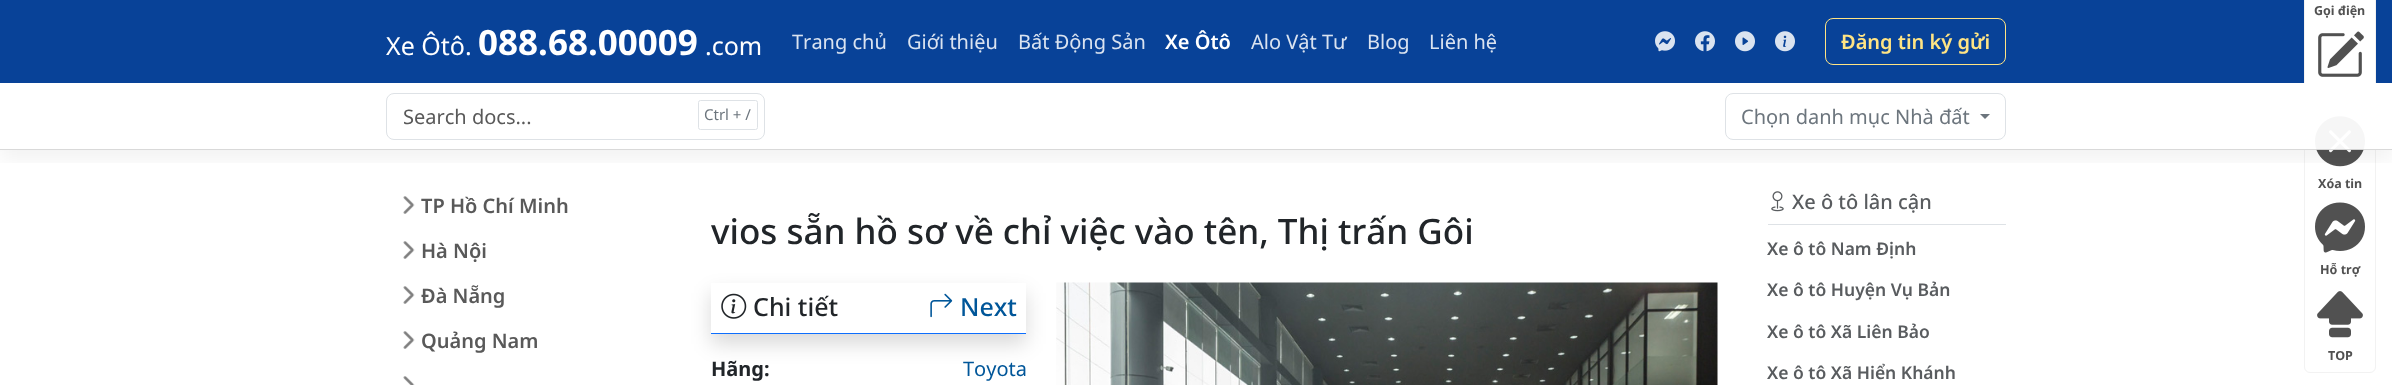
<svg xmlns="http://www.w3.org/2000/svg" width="2392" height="385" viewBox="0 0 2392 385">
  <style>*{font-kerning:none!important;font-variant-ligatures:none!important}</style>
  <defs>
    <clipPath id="clip1"><path d="M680 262H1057V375H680ZM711 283H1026V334H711Z" clip-rule="evenodd"/></clipPath>
    <filter id="blur1" x="-50%" y="-200%" width="200%" height="500%"><feGaussianBlur stdDeviation="10"/></filter>
    <clipPath id="clip2"><rect x="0" y="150" width="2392" height="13"/></clipPath>
  </defs>
  <rect width="100%" height="100%" fill="#ffffff"/>
  <image x="403" y="196" width="12" height="18" href="img1.png"/>
  <text x="421" y="213" font-family="Noto Sans" font-size="20" font-weight="600" fill="#595959">TP Hồ Chí Minh</text>
  <image x="403" y="241" width="12" height="18" href="img1.png"/>
  <text x="421" y="258" font-family="Noto Sans" font-size="20" font-weight="600" fill="#595959">Hà Nội</text>
  <image x="403" y="286" width="12" height="18" href="img1.png"/>
  <text x="421" y="303" font-family="Noto Sans" font-size="20" font-weight="600" fill="#595959">Đà Nẵng</text>
  <image x="403" y="331" width="12" height="18" href="img1.png"/>
  <text x="421" y="348" font-family="Noto Sans" font-size="20" font-weight="600" fill="#595959">Quảng Nam</text>
  <image x="403" y="376" width="12" height="9" href="img2.png"/>
  <text x="711" y="244" font-family="Noto Sans" font-size="35" font-weight="500" fill="#212529">vios sẵn hồ sơ về chỉ việc vào tên, Thị trấn Gôi</text>
  <g clip-path="url(#clip1)">
    <rect x="711" y="293" width="315" height="51" fill="#000000" fill-opacity="0.15" filter="url(#blur1)"/>
  </g>
  <rect x="711" y="295" width="1" height="38" fill="#ffffff" fill-opacity="0.95"/>
  <rect x="711" y="333" width="315" height="1" fill="#0d6efd"/>
  <image x="721" y="293" width="26" height="26" href="img3.png"/>
  <text x="753" y="316" font-family="Noto Sans" font-size="25" font-weight="500" fill="#212529">Chi tiết</text>
  <image x="930" y="293" width="23" height="25" href="img4.png"/>
  <text x="960" y="316" font-family="Noto Sans" font-size="25" font-weight="500" fill="#005699">Next</text>
  <text x="711" y="376" font-family="Noto Sans" font-size="20" font-weight="bold" fill="#212529">Hãng:</text>
  <text x="963" y="376" font-family="Noto Sans" font-size="20" fill="#005699">Toyota</text>
  <image x="1056" y="282" width="662" height="103" href="img5.png"/>
  <rect x="1768" y="224" width="238" height="1" fill="#dee2e6"/>
  <image x="1771" y="191" width="13" height="21" href="img6.png"/>
  <text x="1792" y="209" font-family="Noto Sans" font-size="20" font-weight="500" fill="#595c5f">Xe ô tô lân cận</text>
  <text x="1767" y="255" font-family="Noto Sans" font-size="17.5" font-weight="600" fill="#595c5f">Xe ô tô Nam Định</text>
  <text x="1767" y="296" font-family="Noto Sans" font-size="17.5" font-weight="600" fill="#595c5f">Xe ô tô Huyện Vụ Bản</text>
  <text x="1767" y="338" font-family="Noto Sans" font-size="17.5" font-weight="600" fill="#595c5f">Xe ô tô Xã Liên Bảo</text>
  <text x="1767" y="379" font-family="Noto Sans" font-size="17.5" font-weight="600" fill="#595c5f">Xe ô tô Xã Hiển Khánh</text>
  <rect x="0" y="0" width="2392" height="83" fill="#084298"/>
  <rect x="2304.5" y="-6.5" width="71" height="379" rx="5.5" fill="#ffffff" stroke="#f2f2f2"/>
  <text x="2314" y="15" font-family="Noto Sans" font-size="12.5" font-weight="bold" fill="#515151">Gọi điện</text>
  <image x="2318" y="31" width="46" height="46" href="img7.png"/>
  <image x="2315" y="116" width="50" height="51" href="img8.png"/>
  <text x="2318" y="188" font-family="Noto Sans" font-size="12.5" font-weight="bold" fill="#515151">Xóa tin</text>
  <image x="2315" y="202" width="50" height="51" href="img9.png"/>
  <text x="2320" y="274" font-family="Noto Sans" font-size="12.5" font-weight="bold" fill="#515151">Hỗ trợ</text>
  <image x="2317" y="291" width="46" height="47" href="img10.png"/>
  <text x="2328" y="360" font-family="Noto Sans" font-size="12.5" font-weight="bold" fill="#515151">TOP</text>
  <text x="386" y="55" font-family="Noto Sans" font-size="25" fill="#ffffff">Xe Ôtô.</text>
  <text x="478" y="55" font-family="Noto Sans" font-size="35" font-weight="bold" fill="#ffffff">088.68.00009</text>
  <text x="705" y="55" font-family="Noto Sans" font-size="25" fill="#ffffff">.com</text>
  <text x="792" y="49" font-family="Noto Sans" font-size="20" fill="#dae3f0">Trang chủ</text>
  <text x="907" y="49" font-family="Noto Sans" font-size="20" fill="#dae3f0">Giới thiệu</text>
  <text x="1018" y="49" font-family="Noto Sans" font-size="20" fill="#dae3f0">Bất Động Sản</text>
  <text x="1165" y="49" font-family="Noto Sans" font-size="20" font-weight="600" fill="#ffffff">Xe Ôtô</text>
  <text x="1251" y="49" font-family="Noto Sans" font-size="20" fill="#dae3f0">Alo Vật Tư</text>
  <text x="1367" y="49" font-family="Noto Sans" font-size="20" fill="#dae3f0">Blog</text>
  <text x="1429" y="49" font-family="Noto Sans" font-size="20" fill="#dae3f0">Liên hệ</text>
  <image x="1655" y="31" width="20" height="21" href="img11.png"/>
  <image x="1695" y="31" width="20" height="21" href="img12.png"/>
  <image x="1735" y="31" width="20" height="21" href="img13.png"/>
  <image x="1775" y="31" width="20" height="21" href="img14.png"/>
  <rect x="1825.5" y="18.5" width="180" height="46" rx="7.5" fill="none" stroke="#ffe484"/>
  <text x="1841" y="49" font-family="Noto Sans" font-size="20" font-weight="600" fill="#ffe484">Đăng tin ký gửi</text>
  <g clip-path="url(#clip2)">
    <rect x="0" y="93" width="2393" height="67" fill="#000000" fill-opacity="0.05" filter="url(#blur1)"/>
  </g>
  <rect x="2304" y="83" width="72" height="67" fill="#ffffff" fill-opacity="0.95"/>
  <rect x="0" y="149" width="2392" height="1" fill="#000000" fill-opacity="0.15"/>
  <rect x="386.5" y="93.5" width="378" height="46" rx="7.5" fill="none" stroke="#dee2e6"/>
  <text x="403" y="124" font-family="Noto Sans" font-size="20" fill="#595959">Search docs...</text>
  <rect x="698.5" y="100.5" width="59" height="29" rx="2" fill="none" stroke="#dee2e6"/>
  <text x="704" y="120" font-family="Noto Sans" font-size="15" fill="#6c757d">Ctrl + /</text>
  <rect x="1725.5" y="93.5" width="280" height="46" rx="7.5" fill="none" stroke="#dee2e6"/>
  <text x="1741" y="124" font-family="Noto Sans" font-size="20" fill="#6c757d">Chọn danh mục Nhà đất</text>
  <path d="M1980 114H1990L1985 119Z" fill="#6c757d"/>
</svg>
